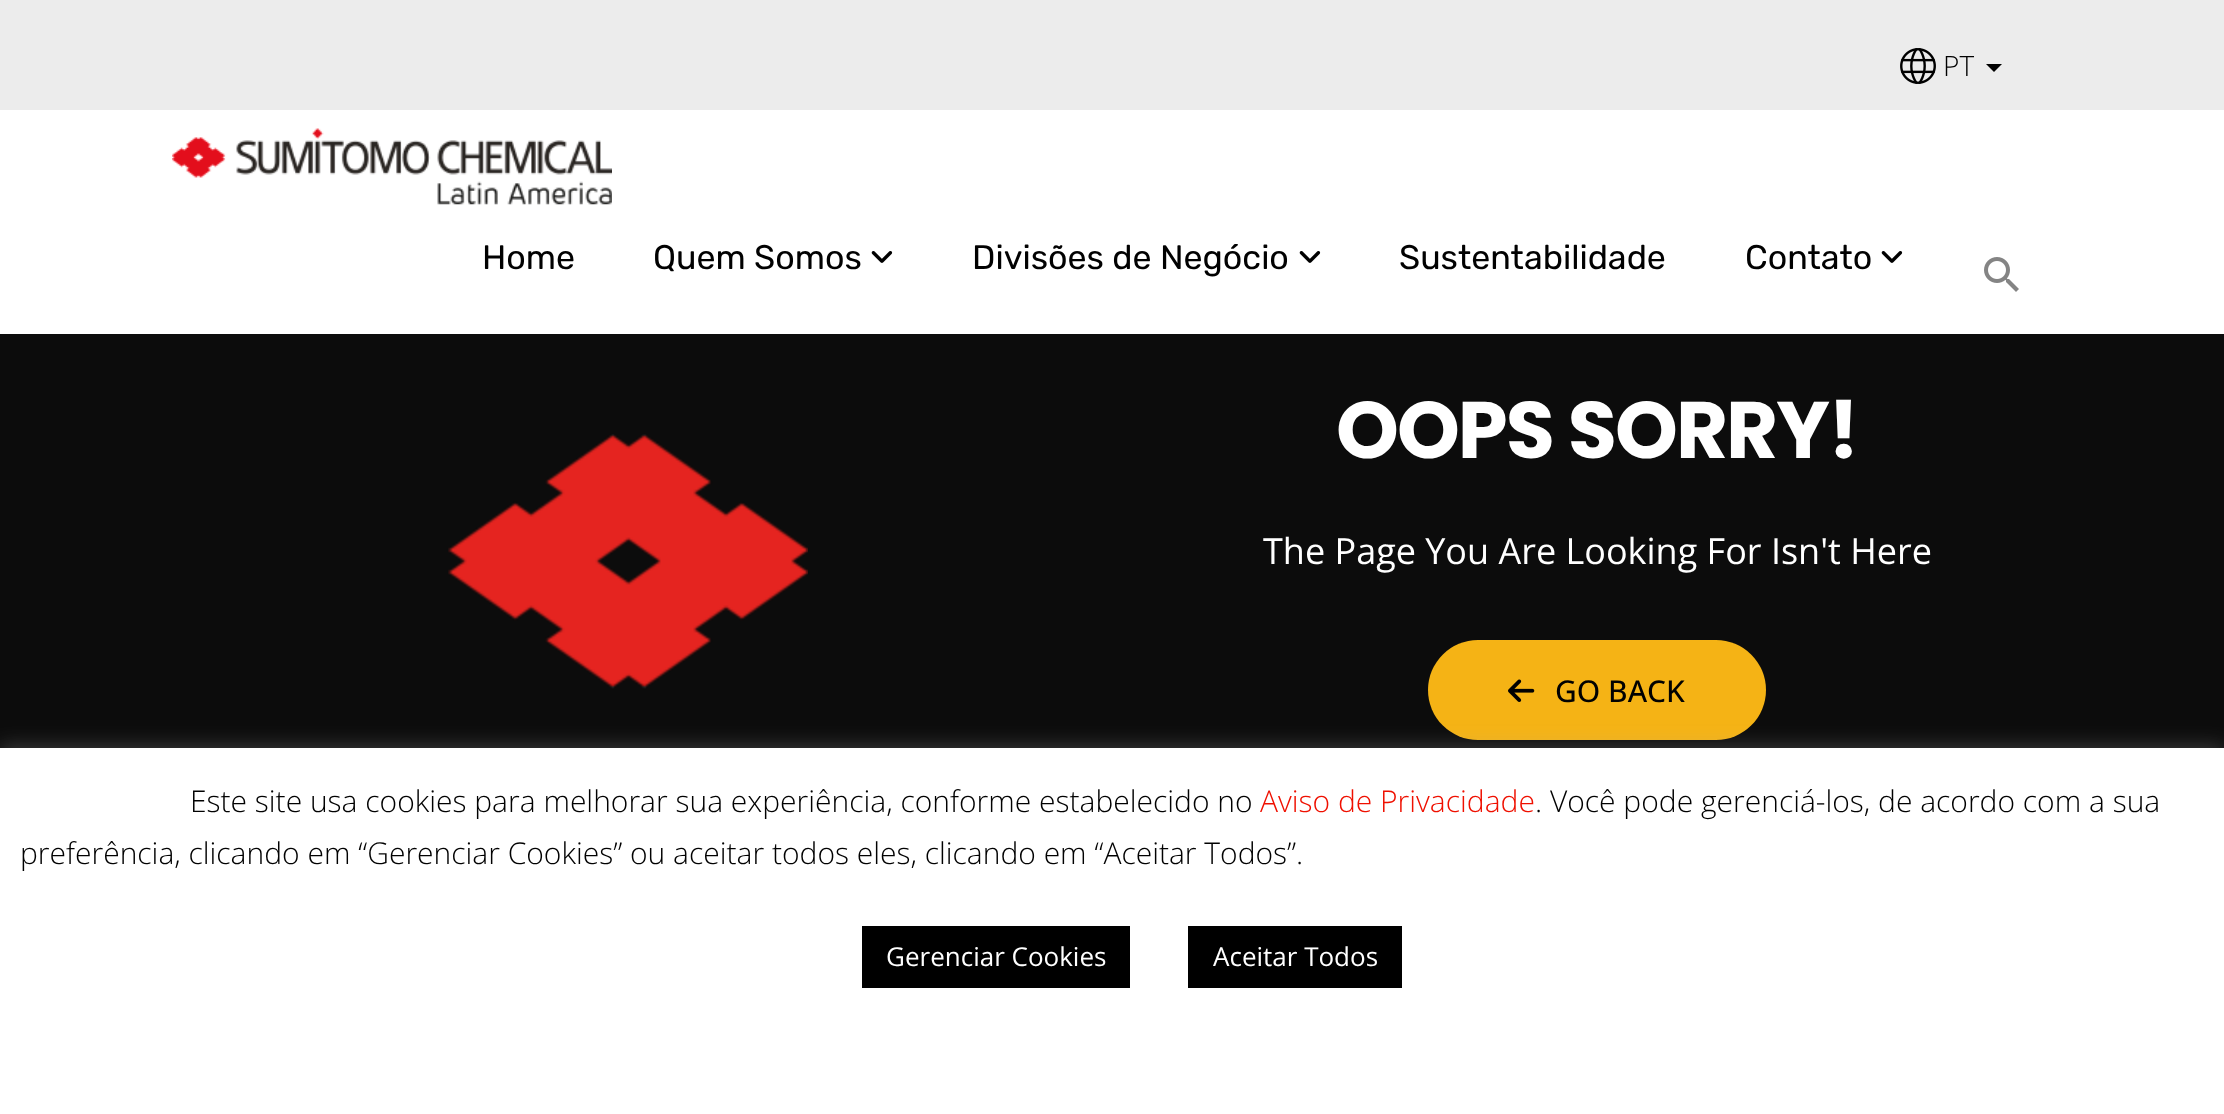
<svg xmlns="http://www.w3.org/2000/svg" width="2224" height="1114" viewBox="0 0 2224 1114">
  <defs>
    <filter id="blur1" x="-50%" y="-200%" width="200%" height="500%"><feGaussianBlur stdDeviation="10"/></filter>
  </defs>
  <rect width="100%" height="100%" fill="#0c0c0c"/>
  <rect x="0" y="0" width="2224" height="110" fill="#ececec"/>
  <image x="1900" y="48" width="36" height="36" href="img1.png"/>
  <text x="1943" y="76" font-family="Open Sans" font-size="28" font-weight="300" fill="#010101">PT</text>
  <path d="M1986 64H2002L1994 72Z" fill="#000000"/>
  <rect x="0" y="110" width="2224" height="224" fill="#ffffff"/>
  <image x="172" y="128" width="440" height="77" href="img2.png"/>
  <text x="482" y="269" font-family="Rubik" font-size="34" font-weight="300" fill="#010101">Home</text>
  <text x="653" y="269" font-family="Rubik" font-size="34" font-weight="300" fill="#010101">Quem Somos</text>
  <image x="871" y="251" width="22" height="12" href="img3.png"/>
  <text x="972" y="269" font-family="Rubik" font-size="34" font-weight="300" fill="#010101">Divisões de Negócio</text>
  <image x="1299" y="251" width="22" height="12" href="img3.png"/>
  <text x="1399" y="269" font-family="Rubik" font-size="34" font-weight="300" fill="#010101">Sustentabilidade</text>
  <text x="1745" y="269" font-family="Rubik" font-size="34" font-weight="300" fill="#010101">Contato</text>
  <image x="1881" y="251" width="22" height="12" href="img3.png"/>
  <image x="1984" y="257" width="35" height="35" href="img4.png"/>
  <image x="448" y="434" width="360" height="255" href="img5.png"/>
  <text x="1336" y="458" font-family="Poppins" font-size="80" font-weight="bold" letter-spacing="-2" fill="#ffffff">OOPS SORRY!</text>
  <text x="1263" y="564" font-family="Open Sans" font-size="36" fill="#ffffff">The Page You Are Looking For Isn't Here</text>
  <rect x="1428" y="640" width="338" height="100" rx="50" fill="#f5b315"/>
  <image x="1508" y="679" width="27" height="23" href="img6.png"/>
  <text x="1555" y="702" font-family="Open Sans" font-size="30" font-weight="500" fill="#010101">GO BACK</text>
  <rect x="0" y="746" width="2224" height="366" fill="#acabab" fill-opacity="0.3" filter="url(#blur1)"/>
  <rect x="0" y="748" width="2224" height="366" fill="#ffffff"/>
  <text x="190" y="812" font-family="Open Sans" font-size="30" font-weight="300" fill="#010101">Este site usa cookies para melhorar sua experiência, conforme estabelecido no</text>
  <text x="1260" y="812" font-family="Open Sans" font-size="30" font-weight="300" fill="#ef1000">Aviso de Privacidade</text>
  <text x="1535" y="812" font-family="Open Sans" font-size="30" font-weight="300" fill="#010101">. Você pode gerenciá-los, de acordo com a sua</text>
  <text x="20" y="864" font-family="Open Sans" font-size="30" font-weight="300" fill="#010101">preferência, clicando em “Gerenciar Cookies” ou aceitar todos eles, clicando em “Aceitar Todos”.</text>
  <rect x="862" y="926" width="268" height="62" fill="#000000"/>
  <text x="886" y="966" font-family="Open Sans" font-size="26" fill="#ffffff">Gerenciar Cookies</text>
  <rect x="1188" y="926" width="214" height="62" fill="#000000"/>
  <text x="1213" y="966" font-family="Open Sans" font-size="26" fill="#ffffff">Aceitar Todos</text>
</svg>
